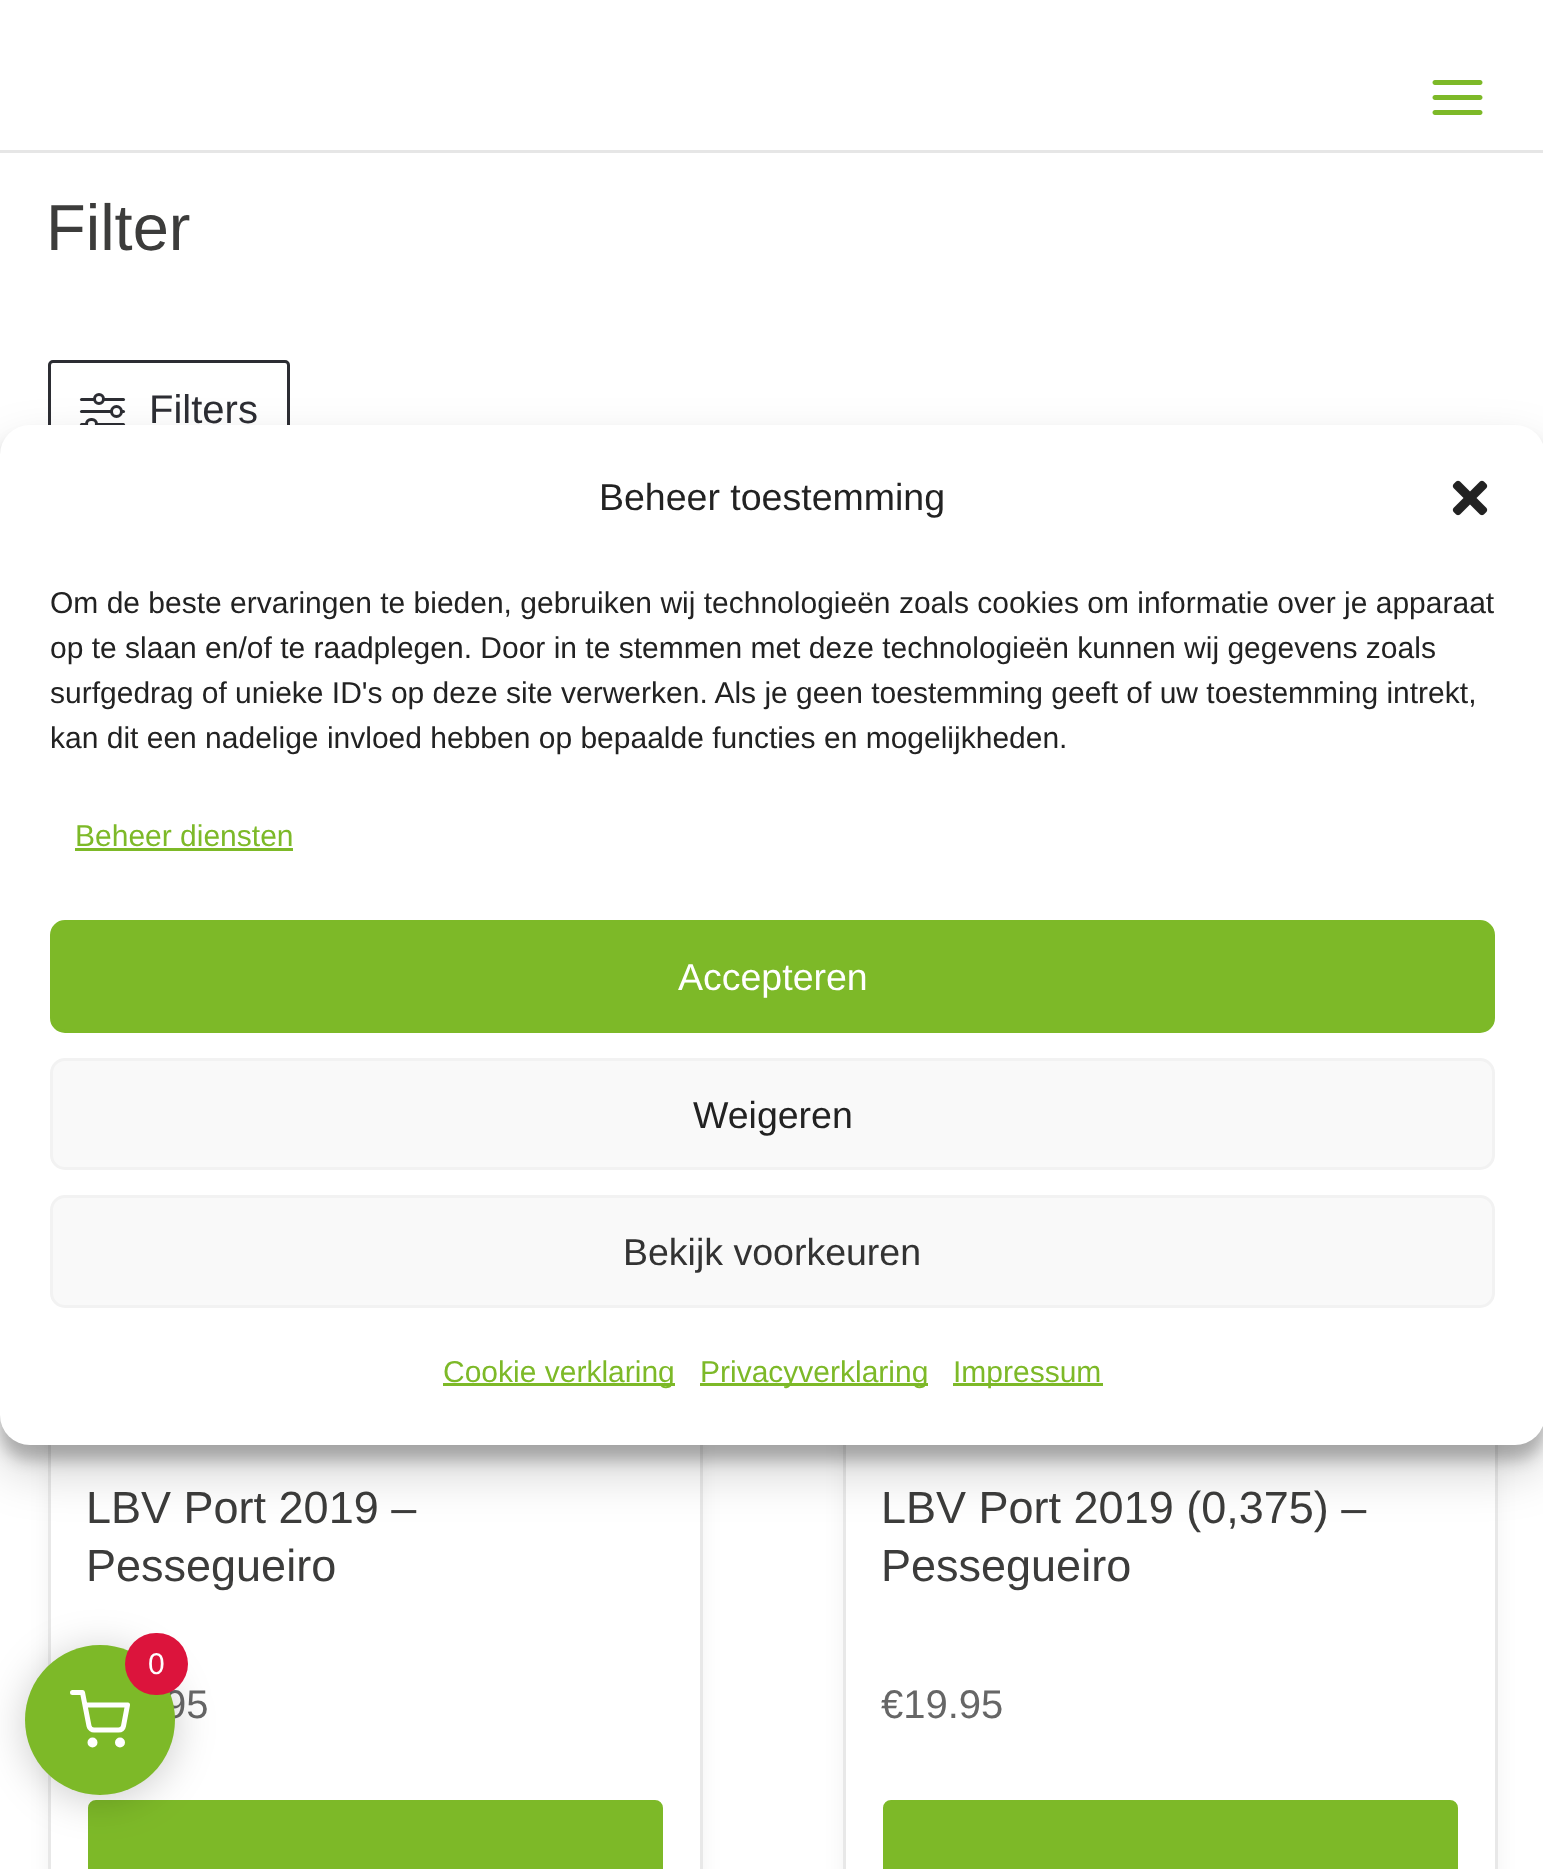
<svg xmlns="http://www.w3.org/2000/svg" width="1543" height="1869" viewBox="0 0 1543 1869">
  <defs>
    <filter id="blur1" x="-50%" y="-200%" width="200%" height="500%"><feGaussianBlur stdDeviation="10"/></filter>
    <filter id="blur2" x="-50%" y="-200%" width="200%" height="500%"><feGaussianBlur stdDeviation="7.5"/></filter>
    <filter id="blur3" x="-50%" y="-200%" width="200%" height="500%"><feGaussianBlur stdDeviation="25"/></filter>
    <filter id="blur4" x="-50%" y="-200%" width="200%" height="500%"><feGaussianBlur stdDeviation="20"/></filter>
  </defs>
  <rect width="100%" height="100%" fill="#ffffff"/>
  <rect x="0" y="150" width="1543" height="3" fill="#e6e6e6"/>
  <image x="1432" y="80" width="51" height="35" href="img1.png"/>
  <text x="46" y="250" font-family="Liberation Sans" font-size="65" fill="#3c3c3b">Filter</text>
  <rect x="49.5" y="361.5" width="239" height="97" rx="3.5" fill="none" stroke="#2c2d33" stroke-width="3"/>
  <rect x="80" y="398" width="45" height="3" rx="1.5" fill="#2c2d33"/>
  <circle cx="99" cy="399" r="4.5" fill="#ffffff" stroke="#2c2d33" stroke-width="3"/>
  <rect x="80" y="410" width="45" height="3" rx="1.5" fill="#2c2d33"/>
  <circle cx="116.5" cy="411.5" r="5" fill="#ffffff" stroke="#2c2d33" stroke-width="3"/>
  <rect x="80" y="423" width="45" height="3" rx="1.5" fill="#2c2d33"/>
  <rect x="86.5" y="419.5" width="10" height="9" rx="4.5" fill="#ffffff" stroke="#2c2d33" stroke-width="3"/>
  <text x="149" y="423" font-family="Liberation Sans" font-size="40" fill="#2c2d33">Filters</text>
  <rect x="48" y="823" width="655" height="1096" rx="20" fill="#000000" fill-opacity="0.05" filter="url(#blur1)"/>
  <rect x="51" y="1445" width="649" height="424" fill="#ffffff"/>
  <rect x="49.5" y="819.5" width="652" height="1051" fill="none" stroke="#e8e8e8" stroke-width="3"/>
  <text x="86" y="1523" font-family="Liberation Sans" font-size="45" fill="#3c3c3b">LBV Port 2019 –</text>
  <text x="86" y="1581" font-family="Liberation Sans" font-size="45" fill="#3c3c3b">Pessegueiro</text>
  <text x="164" y="1718" font-family="Liberation Sans" font-size="40" fill="#666666">95</text>
  <rect x="90.5" y="1802.5" width="570" height="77" rx="5.5" fill="#7db928" stroke="#7db928" stroke-width="5"/>
  <rect x="843" y="823" width="655" height="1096" rx="20" fill="#000000" fill-opacity="0.05" filter="url(#blur1)"/>
  <rect x="846" y="1445" width="649" height="424" fill="#ffffff"/>
  <rect x="844.5" y="819.5" width="652" height="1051" fill="none" stroke="#e8e8e8" stroke-width="3"/>
  <text x="881" y="1523" font-family="Liberation Sans" font-size="45" fill="#3c3c3b">LBV Port 2019 (0,375) –</text>
  <text x="881" y="1581" font-family="Liberation Sans" font-size="45" fill="#3c3c3b">Pessegueiro</text>
  <text x="881" y="1718" font-family="Liberation Sans" font-size="40" fill="#666666">€19.95</text>
  <rect x="885.5" y="1802.5" width="570" height="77" rx="5.5" fill="#7db928" stroke="#7db928" stroke-width="5"/>
  <rect x="0" y="440" width="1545" height="1020" rx="30" fill="#000000" fill-opacity="0.23" filter="url(#blur2)"/>
  <rect x="0" y="450" width="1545" height="1020" rx="30" fill="#000000" fill-opacity="0.19" filter="url(#blur3)"/>
  <rect x="0" y="425" width="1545" height="1020" rx="30" fill="#ffffff"/>
  <text x="599" y="510" font-family="Liberation Sans" font-size="37.5" fill="#222222">Beheer toestemming</text>
  <image x="1452" y="480" width="36" height="36" href="img2.png"/>
  <text x="50" y="613" font-family="Liberation Sans" font-size="30" fill="#222222">Om de beste ervaringen te bieden, gebruiken wij technologieën zoals cookies om informatie over je apparaat</text>
  <text x="50" y="658" font-family="Liberation Sans" font-size="30" fill="#222222">op te slaan en/of te raadplegen. Door in te stemmen met deze technologieën kunnen wij gegevens zoals</text>
  <text x="50" y="703" font-family="Liberation Sans" font-size="30" fill="#222222">surfgedrag of unieke ID's op deze site verwerken. Als je geen toestemming geeft of uw toestemming intrekt,</text>
  <text x="50" y="748" font-family="Liberation Sans" font-size="30" fill="#222222">kan dit een nadelige invloed hebben op bepaalde functies en mogelijkheden.</text>
  <text x="75" y="846" font-family="Liberation Sans" font-size="30" fill="#7db928">Beheer diensten</text>
  <rect x="75" y="848" width="218" height="3" fill="#7db928"/>
  <rect x="51.5" y="921.5" width="1442" height="110" rx="13.5" fill="#7db928" stroke="#7db928" stroke-width="3"/>
  <text x="678" y="990" font-family="Liberation Sans" font-size="37.5" fill="#ffffff">Accepteren</text>
  <rect x="51.5" y="1059.5" width="1442" height="109" rx="13.5" fill="#f9f9f9" stroke="#f2f2f2" stroke-width="3"/>
  <text x="693" y="1128" font-family="Liberation Sans" font-size="37.5" fill="#222222">Weigeren</text>
  <rect x="51.5" y="1196.5" width="1442" height="110" rx="13.5" fill="#f9f9f9" stroke="#f2f2f2" stroke-width="3"/>
  <text x="623" y="1265" font-family="Liberation Sans" font-size="37.5" fill="#333333">Bekijk voorkeuren</text>
  <rect x="443" y="1383" width="232" height="3" fill="#7db928"/>
  <text x="443" y="1382" font-family="Liberation Sans" font-size="30" fill="#7db928">Cookie verklaring</text>
  <rect x="700" y="1383" width="228" height="3" fill="#7db928"/>
  <text x="700" y="1382" font-family="Liberation Sans" font-size="30" fill="#7db928">Privacyverklaring</text>
  <rect x="953" y="1383" width="150" height="3" fill="#7db928"/>
  <text x="953" y="1382" font-family="Liberation Sans" font-size="30" fill="#7db928">Impressum</text>
  <rect x="25" y="1650" width="150" height="150" rx="75" fill="#020610" fill-opacity="0.2" filter="url(#blur4)"/>
  <circle cx="100" cy="1720" r="75" fill="#7db928"/>
  <path d="M72.5 1692.5H82.5L89 1726C89.5 1728.5 92 1730 94 1730H118.5C121 1730 123 1728.5 123.5 1726L127.5 1705H85" fill="none" stroke="#ffffff" stroke-width="5" stroke-linecap="round" stroke-linejoin="round"/>
  <rect x="125" y="1633" width="63" height="62" rx="31" fill="#dc143c"/>
  <text x="148" y="1674" font-family="Liberation Sans" font-size="30" fill="#ffffff">0</text>
  <circle cx="92.5" cy="1742.5" r="2.5" fill="none" stroke="#ffffff" stroke-width="5"/>
  <circle cx="120" cy="1742.5" r="2.5" fill="none" stroke="#ffffff" stroke-width="5"/>
</svg>
